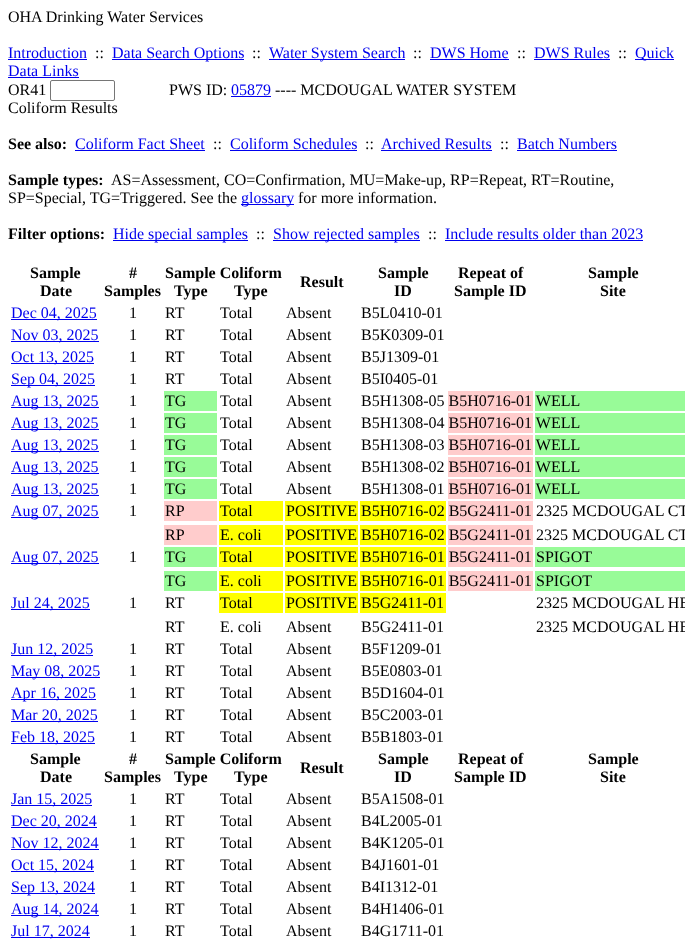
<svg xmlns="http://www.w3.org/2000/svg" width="685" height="949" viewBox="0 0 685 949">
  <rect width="100%" height="100%" fill="#ffffff"/>
  <text x="8" y="22" font-family="Liberation Serif" font-size="16" fill="#000000">OHA Drinking Water Services</text>
  <text x="8" y="58" font-family="Liberation Serif" font-size="16" fill="#0000ee">Introduction</text>
  <rect x="8" y="59" width="79" height="1" fill="#0000ee"/>
  <text x="95" y="58" font-family="Liberation Serif" font-size="16" fill="#000000">::</text>
  <rect x="112" y="59" width="132" height="1" fill="#0000ee"/>
  <text x="112" y="58" font-family="Liberation Serif" font-size="16" fill="#0000ee">Data Search Options</text>
  <text x="252" y="58" font-family="Liberation Serif" font-size="16" fill="#000000">::</text>
  <rect x="269" y="59" width="136" height="1" fill="#0000ee"/>
  <text x="269" y="58" font-family="Liberation Serif" font-size="16" fill="#0000ee">Water System Search</text>
  <text x="413" y="58" font-family="Liberation Serif" font-size="16" fill="#000000">::</text>
  <text x="430" y="58" font-family="Liberation Serif" font-size="16" fill="#0000ee">DWS Home</text>
  <rect x="430" y="59" width="79" height="1" fill="#0000ee"/>
  <text x="517" y="58" font-family="Liberation Serif" font-size="16" fill="#000000">::</text>
  <text x="534" y="58" font-family="Liberation Serif" font-size="16" fill="#0000ee">DWS Rules</text>
  <rect x="534" y="59" width="76" height="1" fill="#0000ee"/>
  <text x="618" y="58" font-family="Liberation Serif" font-size="16" fill="#000000">::</text>
  <rect x="635" y="59" width="39" height="1" fill="#0000ee"/>
  <text x="635" y="58" font-family="Liberation Serif" font-size="16" fill="#0000ee">Quick</text>
  <text x="8" y="76" font-family="Liberation Serif" font-size="16" fill="#0000ee">Data Links</text>
  <rect x="8" y="77" width="71" height="1" fill="#0000ee"/>
  <text x="8" y="95" font-family="Liberation Serif" font-size="16" fill="#000000">OR41</text>
  <rect x="50.5" y="80.5" width="64" height="20" rx="1.5" fill="none" stroke="#767676"/>
  <text x="169" y="95" font-family="Liberation Serif" font-size="16" fill="#000000">PWS ID:</text>
  <text x="231" y="95" font-family="Liberation Serif" font-size="16" fill="#0000ee">05879</text>
  <rect x="231" y="96" width="40" height="1" fill="#0000ee"/>
  <text x="275" y="95" font-family="Liberation Serif" font-size="16" fill="#000000">---- MCDOUGAL WATER SYSTEM</text>
  <text x="8" y="113" font-family="Liberation Serif" font-size="16" fill="#000000">Coliform Results</text>
  <text x="8" y="149" font-family="Liberation Serif" font-size="16" font-weight="bold" fill="#000000">See also:</text>
  <text x="75" y="149" font-family="Liberation Serif" font-size="16" fill="#0000ee">Coliform Fact Sheet</text>
  <rect x="75" y="150" width="130" height="1" fill="#0000ee"/>
  <text x="213" y="149" font-family="Liberation Serif" font-size="16" fill="#000000">::</text>
  <text x="230" y="149" font-family="Liberation Serif" font-size="16" fill="#0000ee">Coliform Schedules</text>
  <rect x="230" y="150" width="127" height="1" fill="#0000ee"/>
  <text x="365" y="149" font-family="Liberation Serif" font-size="16" fill="#000000">::</text>
  <text x="381" y="149" font-family="Liberation Serif" font-size="16" fill="#0000ee">Archived Results</text>
  <rect x="381" y="150" width="111" height="1" fill="#0000ee"/>
  <text x="500" y="149" font-family="Liberation Serif" font-size="16" fill="#000000">::</text>
  <text x="517" y="149" font-family="Liberation Serif" font-size="16" fill="#0000ee">Batch Numbers</text>
  <rect x="517" y="150" width="100" height="1" fill="#0000ee"/>
  <text x="8" y="185" font-family="Liberation Serif" font-size="16" font-weight="bold" fill="#000000">Sample types:</text>
  <text x="111" y="185" font-family="Liberation Serif" font-size="16" fill="#000000">AS=Assessment, CO=Confirmation, MU=Make-up, RP=Repeat, RT=Routine,</text>
  <text x="8" y="203" font-family="Liberation Serif" font-size="16" fill="#000000">SP=Special, TG=Triggered. See the</text>
  <rect x="241" y="204" width="53" height="1" fill="#0000ee"/>
  <text x="241" y="203" font-family="Liberation Serif" font-size="16" fill="#0000ee">glossary</text>
  <text x="298" y="203" font-family="Liberation Serif" font-size="16" fill="#000000">for more information.</text>
  <text x="8" y="239" font-family="Liberation Serif" font-size="16" font-weight="bold" fill="#000000">Filter options:</text>
  <rect x="113" y="240" width="135" height="1" fill="#0000ee"/>
  <text x="113" y="239" font-family="Liberation Serif" font-size="16" fill="#0000ee">Hide special samples</text>
  <text x="256" y="239" font-family="Liberation Serif" font-size="16" fill="#000000">::</text>
  <rect x="273" y="240" width="147" height="1" fill="#0000ee"/>
  <text x="273" y="239" font-family="Liberation Serif" font-size="16" fill="#0000ee">Show rejected samples</text>
  <text x="428" y="239" font-family="Liberation Serif" font-size="16" fill="#000000">::</text>
  <text x="445" y="239" font-family="Liberation Serif" font-size="16" fill="#0000ee">Include results older than 2023</text>
  <rect x="445" y="240" width="198" height="1" fill="#0000ee"/>
  <text x="30" y="278" font-family="Liberation Serif" font-size="16" font-weight="bold" fill="#000000">Sample</text>
  <text x="40" y="296" font-family="Liberation Serif" font-size="16" font-weight="bold" fill="#000000">Date</text>
  <text x="129" y="278" font-family="Liberation Serif" font-size="16" font-weight="bold" fill="#000000">#</text>
  <text x="104" y="296" font-family="Liberation Serif" font-size="16" font-weight="bold" fill="#000000">Samples</text>
  <text x="165" y="278" font-family="Liberation Serif" font-size="16" font-weight="bold" fill="#000000">Sample Coliform</text>
  <text x="174" y="296" font-family="Liberation Serif" font-size="16" font-weight="bold" fill="#000000">Type</text>
  <text x="300" y="287" font-family="Liberation Serif" font-size="16" font-weight="bold" fill="#000000">Result</text>
  <text x="378" y="278" font-family="Liberation Serif" font-size="16" font-weight="bold" fill="#000000">Sample</text>
  <text x="394" y="296" font-family="Liberation Serif" font-size="16" font-weight="bold" fill="#000000">ID</text>
  <text x="458" y="278" font-family="Liberation Serif" font-size="16" font-weight="bold" fill="#000000">Repeat of</text>
  <text x="454" y="296" font-family="Liberation Serif" font-size="16" font-weight="bold" fill="#000000">Sample ID</text>
  <text x="588" y="278" font-family="Liberation Serif" font-size="16" font-weight="bold" fill="#000000">Sample</text>
  <text x="600" y="296" font-family="Liberation Serif" font-size="16" font-weight="bold" fill="#000000">Site</text>
  <text x="234" y="296" font-family="Liberation Serif" font-size="16" font-weight="bold" fill="#000000">Type</text>
  <rect x="11" y="319" width="86" height="1" fill="#0000ee"/>
  <text x="11" y="318" font-family="Liberation Serif" font-size="16" fill="#0000ee">Dec 04, 2025</text>
  <text x="129" y="318" font-family="Liberation Serif" font-size="16" fill="#000000">1</text>
  <text x="165" y="318" font-family="Liberation Serif" font-size="16" fill="#000000">RT</text>
  <text x="220" y="318" font-family="Liberation Serif" font-size="16" fill="#000000">Total</text>
  <text x="286" y="318" font-family="Liberation Serif" font-size="16" fill="#000000">Absent</text>
  <text x="361" y="318" font-family="Liberation Serif" font-size="16" fill="#000000">B5L0410-01</text>
  <rect x="11" y="341" width="88" height="1" fill="#0000ee"/>
  <text x="11" y="340" font-family="Liberation Serif" font-size="16" fill="#0000ee">Nov 03, 2025</text>
  <text x="129" y="340" font-family="Liberation Serif" font-size="16" fill="#000000">1</text>
  <text x="165" y="340" font-family="Liberation Serif" font-size="16" fill="#000000">RT</text>
  <text x="220" y="340" font-family="Liberation Serif" font-size="16" fill="#000000">Total</text>
  <text x="286" y="340" font-family="Liberation Serif" font-size="16" fill="#000000">Absent</text>
  <text x="361" y="340" font-family="Liberation Serif" font-size="16" fill="#000000">B5K0309-01</text>
  <rect x="11" y="363" width="83" height="1" fill="#0000ee"/>
  <text x="11" y="362" font-family="Liberation Serif" font-size="16" fill="#0000ee">Oct 13, 2025</text>
  <text x="129" y="362" font-family="Liberation Serif" font-size="16" fill="#000000">1</text>
  <text x="165" y="362" font-family="Liberation Serif" font-size="16" fill="#000000">RT</text>
  <text x="220" y="362" font-family="Liberation Serif" font-size="16" fill="#000000">Total</text>
  <text x="286" y="362" font-family="Liberation Serif" font-size="16" fill="#000000">Absent</text>
  <text x="361" y="362" font-family="Liberation Serif" font-size="16" fill="#000000">B5J1309-01</text>
  <rect x="11" y="385" width="84" height="1" fill="#0000ee"/>
  <text x="11" y="384" font-family="Liberation Serif" font-size="16" fill="#0000ee">Sep 04, 2025</text>
  <text x="129" y="384" font-family="Liberation Serif" font-size="16" fill="#000000">1</text>
  <text x="165" y="384" font-family="Liberation Serif" font-size="16" fill="#000000">RT</text>
  <text x="220" y="384" font-family="Liberation Serif" font-size="16" fill="#000000">Total</text>
  <text x="286" y="384" font-family="Liberation Serif" font-size="16" fill="#000000">Absent</text>
  <text x="361" y="384" font-family="Liberation Serif" font-size="16" fill="#000000">B5I0405-01</text>
  <rect x="11" y="407" width="88" height="1" fill="#0000ee"/>
  <text x="11" y="406" font-family="Liberation Serif" font-size="16" fill="#0000ee">Aug 13, 2025</text>
  <text x="129" y="406" font-family="Liberation Serif" font-size="16" fill="#000000">1</text>
  <rect x="164" y="391" width="53" height="20" fill="#98fb98"/>
  <text x="165" y="406" font-family="Liberation Serif" font-size="16" fill="#000000">TG</text>
  <text x="220" y="406" font-family="Liberation Serif" font-size="16" fill="#000000">Total</text>
  <text x="286" y="406" font-family="Liberation Serif" font-size="16" fill="#000000">Absent</text>
  <rect x="448" y="391" width="85" height="20" fill="#ffcccc"/>
  <rect x="535" y="391" width="150" height="20" fill="#98fb98"/>
  <text x="361" y="406" font-family="Liberation Serif" font-size="16" fill="#000000">B5H1308-05 B5H0716-01 WELL</text>
  <rect x="11" y="429" width="88" height="1" fill="#0000ee"/>
  <text x="11" y="428" font-family="Liberation Serif" font-size="16" fill="#0000ee">Aug 13, 2025</text>
  <text x="129" y="428" font-family="Liberation Serif" font-size="16" fill="#000000">1</text>
  <rect x="164" y="413" width="53" height="20" fill="#98fb98"/>
  <text x="165" y="428" font-family="Liberation Serif" font-size="16" fill="#000000">TG</text>
  <text x="220" y="428" font-family="Liberation Serif" font-size="16" fill="#000000">Total</text>
  <text x="286" y="428" font-family="Liberation Serif" font-size="16" fill="#000000">Absent</text>
  <rect x="448" y="413" width="85" height="20" fill="#ffcccc"/>
  <rect x="535" y="413" width="150" height="20" fill="#98fb98"/>
  <text x="361" y="428" font-family="Liberation Serif" font-size="16" fill="#000000">B5H1308-04 B5H0716-01 WELL</text>
  <rect x="11" y="451" width="88" height="1" fill="#0000ee"/>
  <text x="11" y="450" font-family="Liberation Serif" font-size="16" fill="#0000ee">Aug 13, 2025</text>
  <text x="129" y="450" font-family="Liberation Serif" font-size="16" fill="#000000">1</text>
  <rect x="164" y="435" width="53" height="20" fill="#98fb98"/>
  <text x="165" y="450" font-family="Liberation Serif" font-size="16" fill="#000000">TG</text>
  <text x="220" y="450" font-family="Liberation Serif" font-size="16" fill="#000000">Total</text>
  <text x="286" y="450" font-family="Liberation Serif" font-size="16" fill="#000000">Absent</text>
  <rect x="448" y="435" width="85" height="20" fill="#ffcccc"/>
  <rect x="535" y="435" width="150" height="20" fill="#98fb98"/>
  <text x="361" y="450" font-family="Liberation Serif" font-size="16" fill="#000000">B5H1308-03 B5H0716-01 WELL</text>
  <rect x="11" y="473" width="88" height="1" fill="#0000ee"/>
  <text x="11" y="472" font-family="Liberation Serif" font-size="16" fill="#0000ee">Aug 13, 2025</text>
  <text x="129" y="472" font-family="Liberation Serif" font-size="16" fill="#000000">1</text>
  <rect x="164" y="457" width="53" height="20" fill="#98fb98"/>
  <text x="165" y="472" font-family="Liberation Serif" font-size="16" fill="#000000">TG</text>
  <text x="220" y="472" font-family="Liberation Serif" font-size="16" fill="#000000">Total</text>
  <text x="286" y="472" font-family="Liberation Serif" font-size="16" fill="#000000">Absent</text>
  <rect x="448" y="457" width="85" height="20" fill="#ffcccc"/>
  <rect x="535" y="457" width="150" height="20" fill="#98fb98"/>
  <text x="361" y="472" font-family="Liberation Serif" font-size="16" fill="#000000">B5H1308-02 B5H0716-01 WELL</text>
  <rect x="11" y="495" width="88" height="1" fill="#0000ee"/>
  <text x="11" y="494" font-family="Liberation Serif" font-size="16" fill="#0000ee">Aug 13, 2025</text>
  <text x="129" y="494" font-family="Liberation Serif" font-size="16" fill="#000000">1</text>
  <rect x="164" y="479" width="53" height="20" fill="#98fb98"/>
  <text x="165" y="494" font-family="Liberation Serif" font-size="16" fill="#000000">TG</text>
  <text x="220" y="494" font-family="Liberation Serif" font-size="16" fill="#000000">Total</text>
  <text x="286" y="494" font-family="Liberation Serif" font-size="16" fill="#000000">Absent</text>
  <rect x="448" y="479" width="85" height="20" fill="#ffcccc"/>
  <rect x="535" y="479" width="150" height="20" fill="#98fb98"/>
  <text x="361" y="494" font-family="Liberation Serif" font-size="16" fill="#000000">B5H1308-01 B5H0716-01 WELL</text>
  <rect x="11" y="517" width="88" height="1" fill="#0000ee"/>
  <text x="11" y="516" font-family="Liberation Serif" font-size="16" fill="#0000ee">Aug 07, 2025</text>
  <text x="129" y="516" font-family="Liberation Serif" font-size="16" fill="#000000">1</text>
  <rect x="164" y="501" width="53" height="20" fill="#ffcccc"/>
  <text x="165" y="516" font-family="Liberation Serif" font-size="16" fill="#000000">RP</text>
  <rect x="219" y="501" width="64" height="20" fill="#ffff00"/>
  <text x="220" y="516" font-family="Liberation Serif" font-size="16" fill="#000000">Total</text>
  <rect x="360" y="501" width="86" height="20" fill="#ffff00"/>
  <rect x="448" y="501" width="85" height="20" fill="#ffcccc"/>
  <rect x="285" y="501" width="73" height="20" fill="#ffff00"/>
  <text x="286" y="516" font-family="Liberation Serif" font-size="16" fill="#000000">POSITIVE B5H0716-02 B5G2411-01</text>
  <text x="536" y="516" font-family="Liberation Serif" font-size="16" fill="#000000">2325 MCDOUGAL CT</text>
  <rect x="164" y="525" width="53" height="20" fill="#ffcccc"/>
  <text x="165" y="540" font-family="Liberation Serif" font-size="16" fill="#000000">RP</text>
  <rect x="219" y="525" width="64" height="20" fill="#ffff00"/>
  <text x="220" y="540" font-family="Liberation Serif" font-size="16" fill="#000000">E. coli</text>
  <rect x="360" y="525" width="86" height="20" fill="#ffff00"/>
  <rect x="448" y="525" width="85" height="20" fill="#ffcccc"/>
  <rect x="285" y="525" width="73" height="20" fill="#ffff00"/>
  <text x="286" y="540" font-family="Liberation Serif" font-size="16" fill="#000000">POSITIVE B5H0716-02 B5G2411-01</text>
  <text x="536" y="540" font-family="Liberation Serif" font-size="16" fill="#000000">2325 MCDOUGAL CT</text>
  <rect x="11" y="563" width="88" height="1" fill="#0000ee"/>
  <text x="11" y="562" font-family="Liberation Serif" font-size="16" fill="#0000ee">Aug 07, 2025</text>
  <text x="129" y="562" font-family="Liberation Serif" font-size="16" fill="#000000">1</text>
  <rect x="164" y="547" width="53" height="20" fill="#98fb98"/>
  <text x="165" y="562" font-family="Liberation Serif" font-size="16" fill="#000000">TG</text>
  <rect x="219" y="547" width="64" height="20" fill="#ffff00"/>
  <text x="220" y="562" font-family="Liberation Serif" font-size="16" fill="#000000">Total</text>
  <rect x="360" y="547" width="86" height="20" fill="#ffff00"/>
  <rect x="448" y="547" width="85" height="20" fill="#ffcccc"/>
  <rect x="285" y="547" width="73" height="20" fill="#ffff00"/>
  <text x="286" y="562" font-family="Liberation Serif" font-size="16" fill="#000000">POSITIVE B5H0716-01 B5G2411-01</text>
  <rect x="535" y="547" width="150" height="20" fill="#98fb98"/>
  <text x="536" y="562" font-family="Liberation Serif" font-size="16" fill="#000000">SPIGOT</text>
  <rect x="164" y="571" width="53" height="20" fill="#98fb98"/>
  <text x="165" y="586" font-family="Liberation Serif" font-size="16" fill="#000000">TG</text>
  <rect x="219" y="571" width="64" height="20" fill="#ffff00"/>
  <text x="220" y="586" font-family="Liberation Serif" font-size="16" fill="#000000">E. coli</text>
  <rect x="360" y="571" width="86" height="20" fill="#ffff00"/>
  <rect x="448" y="571" width="85" height="20" fill="#ffcccc"/>
  <rect x="285" y="571" width="73" height="20" fill="#ffff00"/>
  <text x="286" y="586" font-family="Liberation Serif" font-size="16" fill="#000000">POSITIVE B5H0716-01 B5G2411-01</text>
  <rect x="535" y="571" width="150" height="20" fill="#98fb98"/>
  <text x="536" y="586" font-family="Liberation Serif" font-size="16" fill="#000000">SPIGOT</text>
  <rect x="11" y="609" width="79" height="1" fill="#0000ee"/>
  <text x="11" y="608" font-family="Liberation Serif" font-size="16" fill="#0000ee">Jul 24, 2025</text>
  <text x="129" y="608" font-family="Liberation Serif" font-size="16" fill="#000000">1</text>
  <text x="165" y="608" font-family="Liberation Serif" font-size="16" fill="#000000">RT</text>
  <rect x="219" y="593" width="64" height="20" fill="#ffff00"/>
  <text x="220" y="608" font-family="Liberation Serif" font-size="16" fill="#000000">Total</text>
  <rect x="360" y="593" width="86" height="20" fill="#ffff00"/>
  <rect x="285" y="593" width="73" height="20" fill="#ffff00"/>
  <text x="286" y="608" font-family="Liberation Serif" font-size="16" fill="#000000">POSITIVE B5G2411-01</text>
  <text x="536" y="608" font-family="Liberation Serif" font-size="16" fill="#000000">2325 MCDOUGAL HB</text>
  <text x="165" y="632" font-family="Liberation Serif" font-size="16" fill="#000000">RT</text>
  <text x="220" y="632" font-family="Liberation Serif" font-size="16" fill="#000000">E. coli</text>
  <text x="286" y="632" font-family="Liberation Serif" font-size="16" fill="#000000">Absent</text>
  <text x="361" y="632" font-family="Liberation Serif" font-size="16" fill="#000000">B5G2411-01</text>
  <text x="536" y="632" font-family="Liberation Serif" font-size="16" fill="#000000">2325 MCDOUGAL HB</text>
  <rect x="11" y="655" width="82" height="1" fill="#0000ee"/>
  <text x="11" y="654" font-family="Liberation Serif" font-size="16" fill="#0000ee">Jun 12, 2025</text>
  <text x="129" y="654" font-family="Liberation Serif" font-size="16" fill="#000000">1</text>
  <text x="165" y="654" font-family="Liberation Serif" font-size="16" fill="#000000">RT</text>
  <text x="220" y="654" font-family="Liberation Serif" font-size="16" fill="#000000">Total</text>
  <text x="286" y="654" font-family="Liberation Serif" font-size="16" fill="#000000">Absent</text>
  <text x="361" y="654" font-family="Liberation Serif" font-size="16" fill="#000000">B5F1209-01</text>
  <rect x="11" y="677" width="89" height="1" fill="#0000ee"/>
  <text x="11" y="676" font-family="Liberation Serif" font-size="16" fill="#0000ee">May 08, 2025</text>
  <text x="129" y="676" font-family="Liberation Serif" font-size="16" fill="#000000">1</text>
  <text x="165" y="676" font-family="Liberation Serif" font-size="16" fill="#000000">RT</text>
  <text x="220" y="676" font-family="Liberation Serif" font-size="16" fill="#000000">Total</text>
  <text x="286" y="676" font-family="Liberation Serif" font-size="16" fill="#000000">Absent</text>
  <text x="361" y="676" font-family="Liberation Serif" font-size="16" fill="#000000">B5E0803-01</text>
  <rect x="11" y="699" width="85" height="1" fill="#0000ee"/>
  <text x="11" y="698" font-family="Liberation Serif" font-size="16" fill="#0000ee">Apr 16, 2025</text>
  <text x="129" y="698" font-family="Liberation Serif" font-size="16" fill="#000000">1</text>
  <text x="165" y="698" font-family="Liberation Serif" font-size="16" fill="#000000">RT</text>
  <text x="220" y="698" font-family="Liberation Serif" font-size="16" fill="#000000">Total</text>
  <text x="286" y="698" font-family="Liberation Serif" font-size="16" fill="#000000">Absent</text>
  <text x="361" y="698" font-family="Liberation Serif" font-size="16" fill="#000000">B5D1604-01</text>
  <rect x="11" y="721" width="87" height="1" fill="#0000ee"/>
  <text x="11" y="720" font-family="Liberation Serif" font-size="16" fill="#0000ee">Mar 20, 2025</text>
  <text x="129" y="720" font-family="Liberation Serif" font-size="16" fill="#000000">1</text>
  <text x="165" y="720" font-family="Liberation Serif" font-size="16" fill="#000000">RT</text>
  <text x="220" y="720" font-family="Liberation Serif" font-size="16" fill="#000000">Total</text>
  <text x="286" y="720" font-family="Liberation Serif" font-size="16" fill="#000000">Absent</text>
  <text x="361" y="720" font-family="Liberation Serif" font-size="16" fill="#000000">B5C2003-01</text>
  <rect x="11" y="743" width="84" height="1" fill="#0000ee"/>
  <text x="11" y="742" font-family="Liberation Serif" font-size="16" fill="#0000ee">Feb 18, 2025</text>
  <text x="129" y="742" font-family="Liberation Serif" font-size="16" fill="#000000">1</text>
  <text x="165" y="742" font-family="Liberation Serif" font-size="16" fill="#000000">RT</text>
  <text x="220" y="742" font-family="Liberation Serif" font-size="16" fill="#000000">Total</text>
  <text x="286" y="742" font-family="Liberation Serif" font-size="16" fill="#000000">Absent</text>
  <text x="361" y="742" font-family="Liberation Serif" font-size="16" fill="#000000">B5B1803-01</text>
  <text x="30" y="764" font-family="Liberation Serif" font-size="16" font-weight="bold" fill="#000000">Sample</text>
  <text x="40" y="782" font-family="Liberation Serif" font-size="16" font-weight="bold" fill="#000000">Date</text>
  <text x="129" y="764" font-family="Liberation Serif" font-size="16" font-weight="bold" fill="#000000">#</text>
  <text x="104" y="782" font-family="Liberation Serif" font-size="16" font-weight="bold" fill="#000000">Samples</text>
  <text x="165" y="764" font-family="Liberation Serif" font-size="16" font-weight="bold" fill="#000000">Sample Coliform</text>
  <text x="174" y="782" font-family="Liberation Serif" font-size="16" font-weight="bold" fill="#000000">Type</text>
  <text x="300" y="773" font-family="Liberation Serif" font-size="16" font-weight="bold" fill="#000000">Result</text>
  <text x="378" y="764" font-family="Liberation Serif" font-size="16" font-weight="bold" fill="#000000">Sample</text>
  <text x="394" y="782" font-family="Liberation Serif" font-size="16" font-weight="bold" fill="#000000">ID</text>
  <text x="458" y="764" font-family="Liberation Serif" font-size="16" font-weight="bold" fill="#000000">Repeat of</text>
  <text x="454" y="782" font-family="Liberation Serif" font-size="16" font-weight="bold" fill="#000000">Sample ID</text>
  <text x="588" y="764" font-family="Liberation Serif" font-size="16" font-weight="bold" fill="#000000">Sample</text>
  <text x="600" y="782" font-family="Liberation Serif" font-size="16" font-weight="bold" fill="#000000">Site</text>
  <text x="234" y="782" font-family="Liberation Serif" font-size="16" font-weight="bold" fill="#000000">Type</text>
  <rect x="11" y="805" width="81" height="1" fill="#0000ee"/>
  <text x="11" y="804" font-family="Liberation Serif" font-size="16" fill="#0000ee">Jan 15, 2025</text>
  <text x="129" y="804" font-family="Liberation Serif" font-size="16" fill="#000000">1</text>
  <text x="165" y="804" font-family="Liberation Serif" font-size="16" fill="#000000">RT</text>
  <text x="220" y="804" font-family="Liberation Serif" font-size="16" fill="#000000">Total</text>
  <text x="286" y="804" font-family="Liberation Serif" font-size="16" fill="#000000">Absent</text>
  <text x="361" y="804" font-family="Liberation Serif" font-size="16" fill="#000000">B5A1508-01</text>
  <rect x="11" y="827" width="86" height="1" fill="#0000ee"/>
  <text x="11" y="826" font-family="Liberation Serif" font-size="16" fill="#0000ee">Dec 20, 2024</text>
  <text x="129" y="826" font-family="Liberation Serif" font-size="16" fill="#000000">1</text>
  <text x="165" y="826" font-family="Liberation Serif" font-size="16" fill="#000000">RT</text>
  <text x="220" y="826" font-family="Liberation Serif" font-size="16" fill="#000000">Total</text>
  <text x="286" y="826" font-family="Liberation Serif" font-size="16" fill="#000000">Absent</text>
  <text x="361" y="826" font-family="Liberation Serif" font-size="16" fill="#000000">B4L2005-01</text>
  <rect x="11" y="849" width="88" height="1" fill="#0000ee"/>
  <text x="11" y="848" font-family="Liberation Serif" font-size="16" fill="#0000ee">Nov 12, 2024</text>
  <text x="129" y="848" font-family="Liberation Serif" font-size="16" fill="#000000">1</text>
  <text x="165" y="848" font-family="Liberation Serif" font-size="16" fill="#000000">RT</text>
  <text x="220" y="848" font-family="Liberation Serif" font-size="16" fill="#000000">Total</text>
  <text x="286" y="848" font-family="Liberation Serif" font-size="16" fill="#000000">Absent</text>
  <text x="361" y="848" font-family="Liberation Serif" font-size="16" fill="#000000">B4K1205-01</text>
  <rect x="11" y="871" width="83" height="1" fill="#0000ee"/>
  <text x="11" y="870" font-family="Liberation Serif" font-size="16" fill="#0000ee">Oct 15, 2024</text>
  <text x="129" y="870" font-family="Liberation Serif" font-size="16" fill="#000000">1</text>
  <text x="165" y="870" font-family="Liberation Serif" font-size="16" fill="#000000">RT</text>
  <text x="220" y="870" font-family="Liberation Serif" font-size="16" fill="#000000">Total</text>
  <text x="286" y="870" font-family="Liberation Serif" font-size="16" fill="#000000">Absent</text>
  <text x="361" y="870" font-family="Liberation Serif" font-size="16" fill="#000000">B4J1601-01</text>
  <rect x="11" y="893" width="84" height="1" fill="#0000ee"/>
  <text x="11" y="892" font-family="Liberation Serif" font-size="16" fill="#0000ee">Sep 13, 2024</text>
  <text x="129" y="892" font-family="Liberation Serif" font-size="16" fill="#000000">1</text>
  <text x="165" y="892" font-family="Liberation Serif" font-size="16" fill="#000000">RT</text>
  <text x="220" y="892" font-family="Liberation Serif" font-size="16" fill="#000000">Total</text>
  <text x="286" y="892" font-family="Liberation Serif" font-size="16" fill="#000000">Absent</text>
  <text x="361" y="892" font-family="Liberation Serif" font-size="16" fill="#000000">B4I1312-01</text>
  <rect x="11" y="915" width="88" height="1" fill="#0000ee"/>
  <text x="11" y="914" font-family="Liberation Serif" font-size="16" fill="#0000ee">Aug 14, 2024</text>
  <text x="129" y="914" font-family="Liberation Serif" font-size="16" fill="#000000">1</text>
  <text x="165" y="914" font-family="Liberation Serif" font-size="16" fill="#000000">RT</text>
  <text x="220" y="914" font-family="Liberation Serif" font-size="16" fill="#000000">Total</text>
  <text x="286" y="914" font-family="Liberation Serif" font-size="16" fill="#000000">Absent</text>
  <text x="361" y="914" font-family="Liberation Serif" font-size="16" fill="#000000">B4H1406-01</text>
  <rect x="11" y="937" width="79" height="1" fill="#0000ee"/>
  <text x="11" y="936" font-family="Liberation Serif" font-size="16" fill="#0000ee">Jul 17, 2024</text>
  <text x="129" y="936" font-family="Liberation Serif" font-size="16" fill="#000000">1</text>
  <text x="165" y="936" font-family="Liberation Serif" font-size="16" fill="#000000">RT</text>
  <text x="220" y="936" font-family="Liberation Serif" font-size="16" fill="#000000">Total</text>
  <text x="286" y="936" font-family="Liberation Serif" font-size="16" fill="#000000">Absent</text>
  <text x="361" y="936" font-family="Liberation Serif" font-size="16" fill="#000000">B4G1711-01</text>
</svg>
